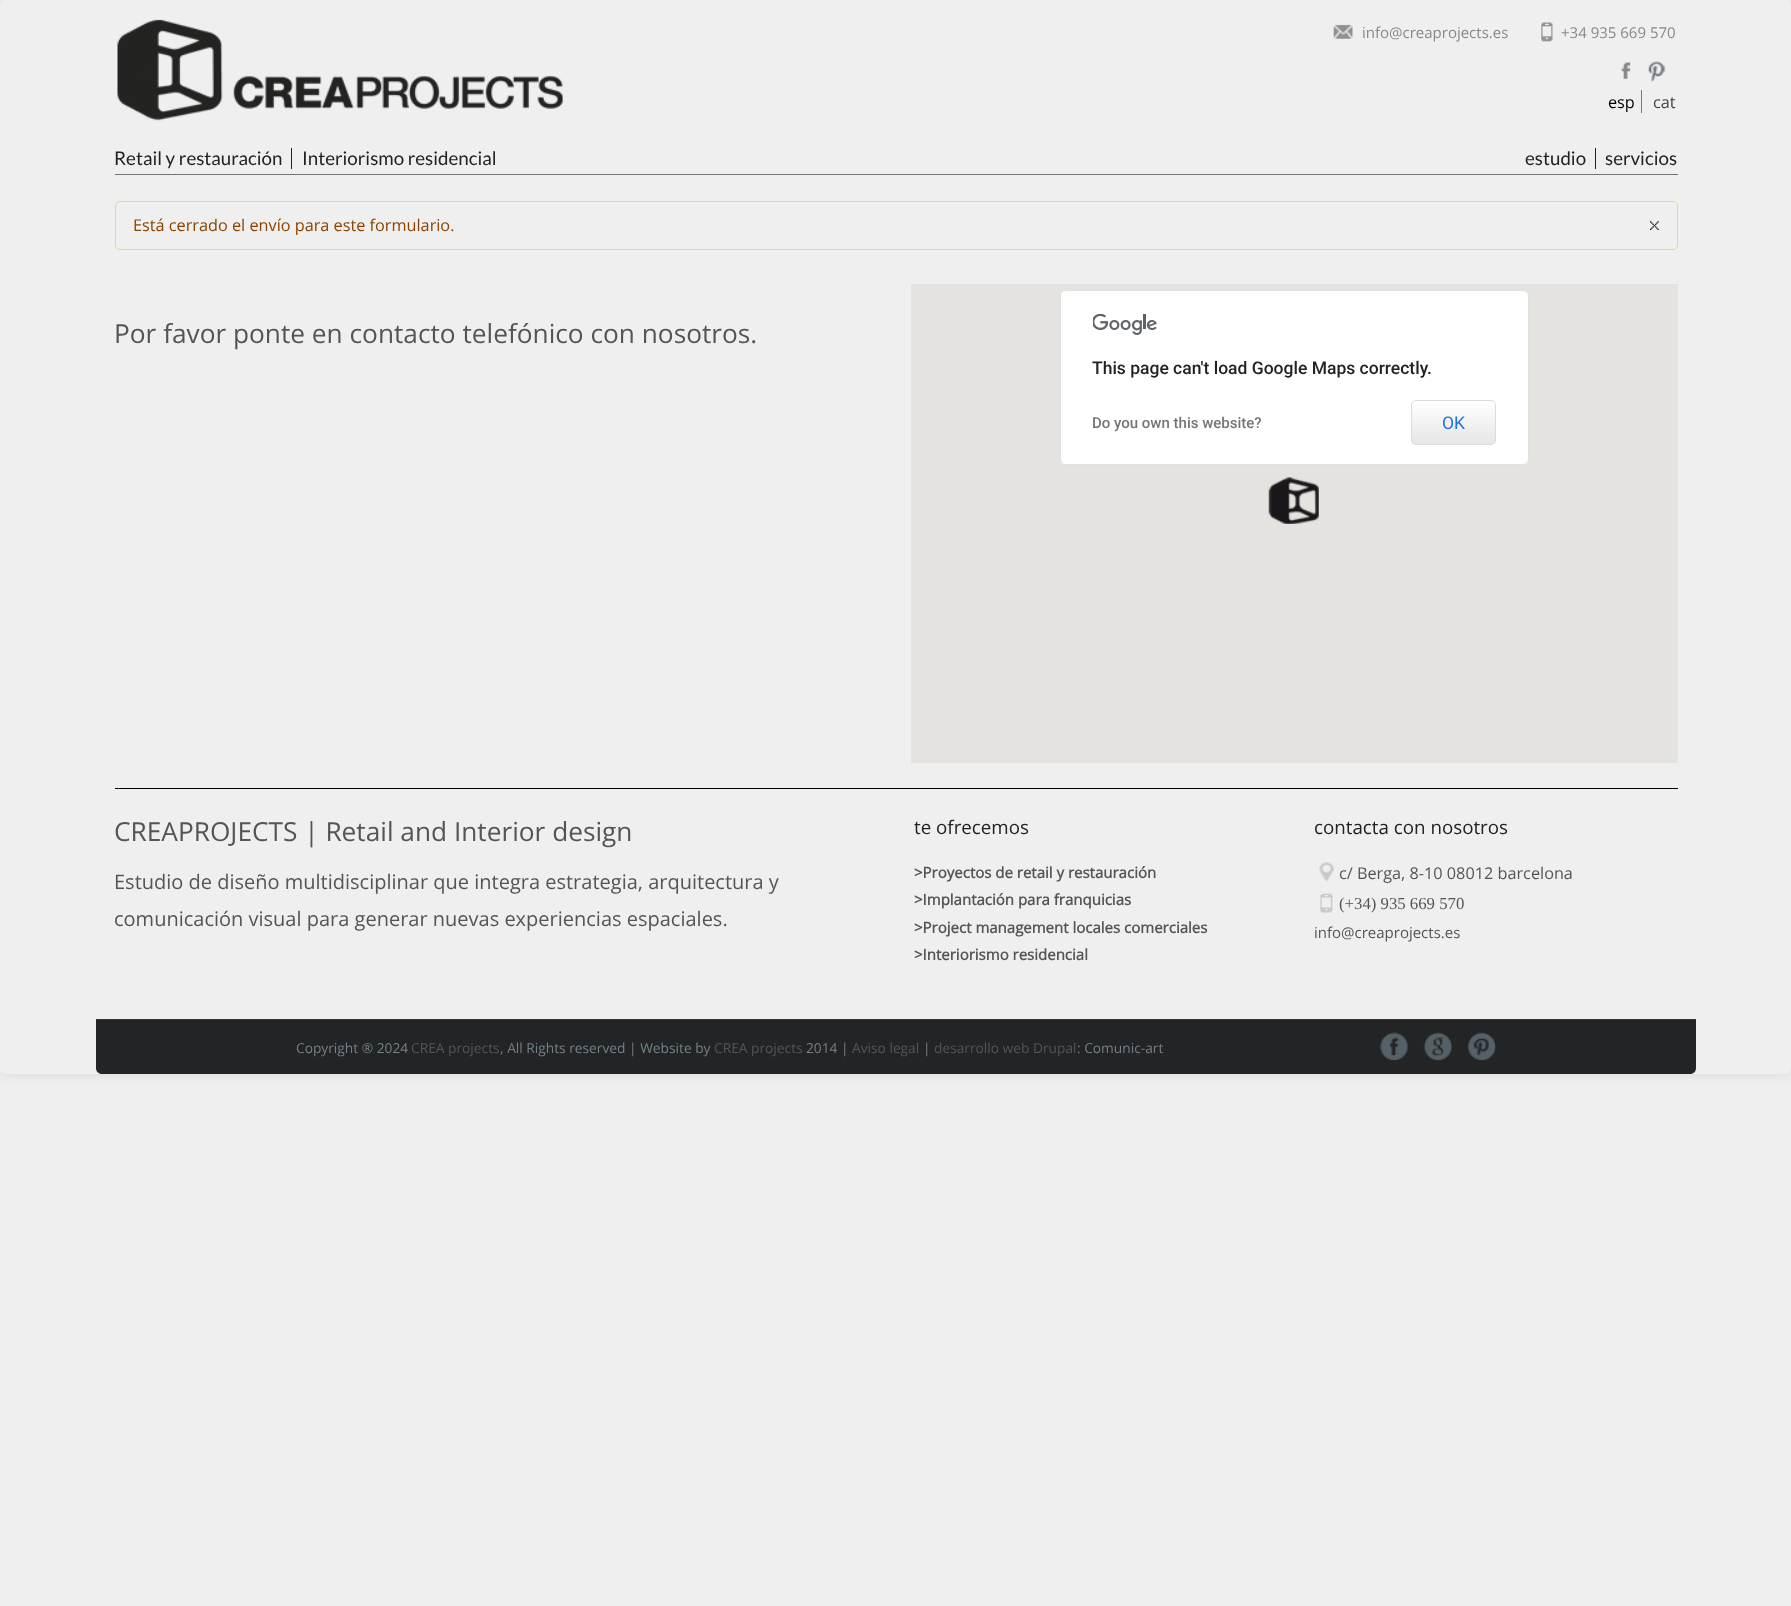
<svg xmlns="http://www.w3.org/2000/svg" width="1791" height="1606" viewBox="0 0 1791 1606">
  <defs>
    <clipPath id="clip1"><path d="M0 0H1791V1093H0ZM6 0H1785C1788.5 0 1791 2.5 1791 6V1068C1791 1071.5 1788.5 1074 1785 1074H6C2.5 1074 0 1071.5 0 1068V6C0 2.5 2.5 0 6 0Z" clip-rule="evenodd"/></clipPath>
    <filter id="blur1" x="-50%" y="-200%" width="200%" height="500%"><feGaussianBlur stdDeviation="6"/></filter>
    <clipPath id="clip2"><rect x="1411" y="400" width="85" height="45" rx="5"/></clipPath>
    <linearGradient id="g1" gradientUnits="userSpaceOnUse" x1="1453" y1="401" x2="1453" y2="444"><stop offset="0" stop-color="#ffffff"/><stop offset="1" stop-color="#e6e6e6"/></linearGradient>
  </defs>
  <rect width="100%" height="100%" fill="#efefef"/>
  <g clip-path="url(#clip1)">
    <rect x="0" y="0" width="1791" height="1074" rx="6" fill="#000000" fill-opacity="0.1" filter="url(#blur1)"/>
  </g>
  <image x="117" y="19" width="446" height="102" href="img1.png"/>
  <image x="1333" y="24" width="20" height="15" href="img2.png"/>
  <text x="1362" y="38" font-family="Open Sans" font-size="15" fill="#888888">info@creaprojects.es</text>
  <image x="1541" y="22" width="12" height="20" href="img3.png"/>
  <text x="1561" y="38" font-family="Open Sans" font-size="15" fill="#888888">+34 935 669 570</text>
  <image x="1621" y="62" width="10" height="17" href="img4.png"/>
  <image x="1648" y="61" width="18" height="21" href="img5.png"/>
  <text x="1608" y="108" font-family="Open Sans" font-size="16.25" fill="#000000">esp</text>
  <rect x="1641" y="90" width="1" height="23" fill="#767778"/>
  <text x="1653" y="108" font-family="Open Sans" font-size="16.25" fill="#444444">cat</text>
  <rect x="115" y="174" width="1563" height="1" fill="#747475"/>
  <text x="114" y="165" font-family="Lato" font-size="18.75" fill="#222222">Retail y restauración</text>
  <rect x="291" y="148" width="1" height="21" fill="#222222"/>
  <text x="302" y="165" font-family="Lato" font-size="18.75" fill="#222222">Interiorismo residencial</text>
  <text x="1525" y="165" font-family="Lato" font-size="18.75" fill="#222222">estudio</text>
  <rect x="1595" y="148" width="1" height="21" fill="#222222"/>
  <text x="1605" y="165" font-family="Lato" font-size="18.75" fill="#222222">servicios</text>
  <rect x="115.5" y="201.5" width="1562" height="48" rx="4.5" fill="none" stroke="#eedd55"/>
  <text x="133" y="231" font-family="Open Sans" font-size="16.25" fill="#884400">Está cerrado el envío para este formulario.</text>
  <image x="1650" y="221" width="9" height="9" href="img6.png"/>
  <text x="114" y="343" font-family="Open Sans" font-size="26.25" fill="#555555">Por favor ponte en contacto telefónico con nosotros.</text>
  <rect x="911" y="284" width="767" height="479" fill="#e5e3df"/>
  <image x="1268" y="477" width="51" height="47" href="img7.png"/>
  <rect x="1060" y="290" width="469" height="175" rx="6" fill="#ffffff"/>
  <rect x="1060.5" y="290.5" width="468" height="174" rx="5.5" fill="none" stroke="#000000" stroke-opacity="0.12"/>
  <image x="1093" y="314" width="64" height="21" href="img8.png"/>
  <text x="1092" y="374" font-family="Roboto" font-size="17.5" font-weight="500" fill="#222222">This page can't load Google Maps correctly.</text>
  <text x="1092" y="428" font-family="Roboto" font-size="15" font-weight="500" fill="#757575">Do you own this website?</text>
  <g clip-path="url(#clip2)">
    <rect x="1411" y="401" width="85" height="43" fill="url(#g1)"/>
  </g>
  <rect x="1411.5" y="400.5" width="84" height="44" rx="4.5" fill="none" stroke="#dadce0"/>
  <text x="1442" y="429" font-family="Roboto" font-size="17.5" fill="#1a73e8">OK</text>
  <rect x="115" y="788" width="1563" height="1" fill="#000000"/>
  <text x="114" y="841" font-family="Open Sans" font-size="26.25" fill="#555555">CREAPROJECTS | Retail and Interior design</text>
  <text x="114" y="889" font-family="Open Sans" font-size="20" fill="#555555">Estudio de diseño multidisciplinar que integra estrategia, arquitectura y</text>
  <text x="114" y="926" font-family="Open Sans" font-size="20" fill="#555555">comunicación visual para generar nuevas experiencias espaciales.</text>
  <text x="914" y="834" font-family="Open Sans" font-size="18.75" fill="#222222">te ofrecemos</text>
  <text x="914" y="878" font-family="Open Sans" font-size="15" font-weight="bold" fill="#555555">&gt;Proyectos de retail y restauración</text>
  <text x="914" y="905" font-family="Open Sans" font-size="15" font-weight="bold" fill="#555555">&gt;Implantación para franquicias</text>
  <text x="914" y="933" font-family="Open Sans" font-size="15" font-weight="bold" fill="#555555">&gt;Project management locales comerciales</text>
  <text x="914" y="960" font-family="Open Sans" font-size="15" font-weight="bold" fill="#555555">&gt;Interiorismo residencial</text>
  <text x="1314" y="834" font-family="Open Sans" font-size="18.75" fill="#222222">contacta con nosotros</text>
  <image x="1319" y="862" width="15" height="20" href="img9.png"/>
  <text x="1339" y="879" font-family="Open Sans" font-size="16.25" fill="#555555">c/ Berga, 8-10 08012 barcelona</text>
  <image x="1320" y="893" width="13" height="20" href="img10.png"/>
  <text x="1339" y="909" font-family="Liberation Serif" font-size="16.75" fill="#555555">(+34) 935 669 570</text>
  <text x="1314" y="938" font-family="Open Sans" font-size="15" fill="#555555">info@creaprojects.es</text>
  <path d="M96 1019H1696V1068C1696 1071.5 1693.5 1074 1690 1074H102C98.5 1074 96 1071.5 96 1068Z" fill="#222425"/>
  <rect x="96" y="1019" width="1600" height="1" fill="#373737"/>
  <text x="296" y="1053" font-family="Open Sans" font-size="13.75" fill="#748188">Copyright ® 2024</text>
  <text x="411" y="1053" font-family="Open Sans" font-size="13.75" fill="#555555">CREA projects</text>
  <text x="500" y="1053" font-family="Open Sans" font-size="13.75" fill="#748188">, All Rights reserved | Website by</text>
  <text x="714" y="1053" font-family="Open Sans" font-size="13.75" fill="#555555">CREA projects</text>
  <text x="806" y="1053" font-family="Open Sans" font-size="13.75" fill="#748188">2014 |</text>
  <text x="852" y="1053" font-family="Open Sans" font-size="13.75" fill="#555555">Aviso legal</text>
  <text x="923" y="1053" font-family="Open Sans" font-size="13.75" fill="#748188">|</text>
  <text x="934" y="1053" font-family="Open Sans" font-size="13.75" fill="#555555">desarrollo web Drupal</text>
  <text x="1077" y="1053" font-family="Open Sans" font-size="13.75" fill="#748188">: Comunic-art</text>
  <image x="1380" y="1032" width="28" height="29" href="img11.png"/>
  <image x="1423" y="1032" width="30" height="29" href="img12.png"/>
  <image x="1467" y="1032" width="29" height="29" href="img13.png"/>
</svg>
